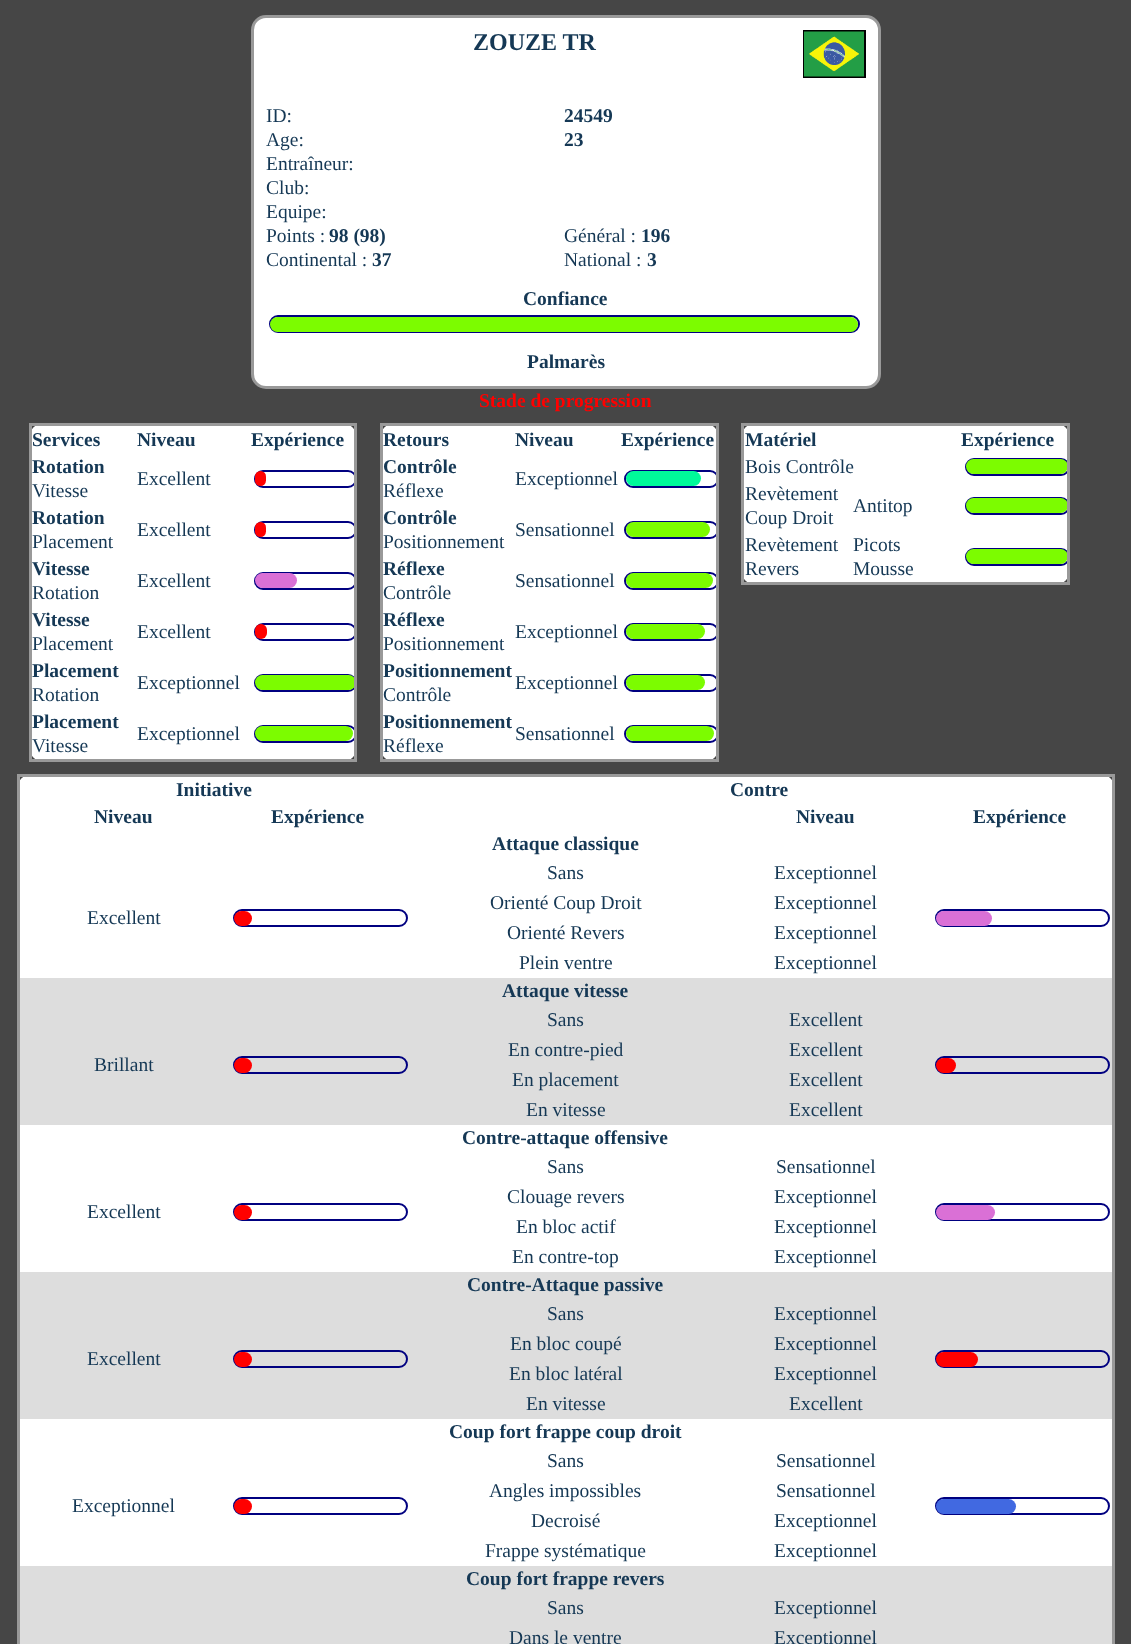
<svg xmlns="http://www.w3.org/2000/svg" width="1131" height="1644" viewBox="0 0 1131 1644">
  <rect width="100%" height="100%" fill="#464646"/>
  <rect x="252.5" y="16.5" width="627" height="371" rx="13.5" fill="#ffffff" stroke="#999999" stroke-width="3"/>
  <text x="473" y="50" font-family="Liberation Serif" font-size="24" font-weight="bold" fill="#153855">ZOUZE TR</text>
  <rect x="804" y="31" width="61" height="46" fill="none" stroke="#000000" stroke-width="2"/>
  <image x="804" y="31" width="60" height="46" href="img1.png"/>
  <text x="266" y="122" font-family="Liberation Serif" font-size="19.5" fill="#153855">ID:</text>
  <text x="564" y="122" font-family="Liberation Serif" font-size="19.5" font-weight="bold" fill="#153855">24549</text>
  <text x="266" y="146" font-family="Liberation Serif" font-size="19.5" fill="#153855">Age:</text>
  <text x="564" y="146" font-family="Liberation Serif" font-size="19.5" font-weight="bold" fill="#153855">23</text>
  <text x="266" y="170" font-family="Liberation Serif" font-size="19.5" fill="#153855">Entraîneur:</text>
  <text x="266" y="194" font-family="Liberation Serif" font-size="19.5" fill="#153855">Club:</text>
  <text x="266" y="218" font-family="Liberation Serif" font-size="19.5" fill="#153855">Equipe:</text>
  <text x="266" y="242" font-family="Liberation Serif" font-size="19.5" fill="#153855">Points :</text>
  <text x="329" y="242" font-family="Liberation Serif" font-size="19.5" font-weight="bold" fill="#153855">98 (98)</text>
  <text x="564" y="242" font-family="Liberation Serif" font-size="19.5" fill="#153855">Général :</text>
  <text x="641" y="242" font-family="Liberation Serif" font-size="19.5" font-weight="bold" fill="#153855">196</text>
  <text x="266" y="266" font-family="Liberation Serif" font-size="19.5" fill="#153855">Continental :</text>
  <text x="372" y="266" font-family="Liberation Serif" font-size="19.5" font-weight="bold" fill="#153855">37</text>
  <text x="564" y="266" font-family="Liberation Serif" font-size="19.5" fill="#153855">National :</text>
  <text x="647" y="266" font-family="Liberation Serif" font-size="19.5" font-weight="bold" fill="#153855">3</text>
  <text x="523" y="305" font-family="Liberation Serif" font-size="19.5" font-weight="bold" fill="#153855">Confiance</text>
  <rect x="270" y="316" width="589" height="16" rx="8" fill="none" stroke="#000080" stroke-width="2"/>
  <rect x="270" y="317" width="588" height="15" rx="7.5" fill="#7cfc00"/>
  <text x="527" y="368" font-family="Liberation Serif" font-size="19.5" font-weight="bold" fill="#153855">Palmarès</text>
  <text x="479" y="407" font-family="Liberation Serif" font-size="19.5" font-weight="bold" fill="#ff0000">Stade de progression</text>
  <rect x="29" y="423" width="328" height="339" rx="15" fill="#ffffff"/>
  <rect x="29" y="423" width="328" height="3" fill="#999999"/>
  <rect x="255" y="471" width="101" height="16" rx="8" fill="none" stroke="#000080" stroke-width="2"/>
  <rect x="255" y="522" width="101" height="16" rx="8" fill="none" stroke="#000080" stroke-width="2"/>
  <rect x="255" y="573" width="101" height="16" rx="8" fill="none" stroke="#000080" stroke-width="2"/>
  <rect x="255" y="624" width="101" height="16" rx="8" fill="none" stroke="#000080" stroke-width="2"/>
  <rect x="255" y="675" width="101" height="16" rx="8" fill="none" stroke="#000080" stroke-width="2"/>
  <rect x="255" y="675" width="101" height="15" rx="7.5" fill="#7cfc00"/>
  <rect x="255" y="726" width="101" height="16" rx="8" fill="none" stroke="#000080" stroke-width="2"/>
  <rect x="354" y="423" width="3" height="339" fill="#999999"/>
  <rect x="29" y="759" width="328" height="3" fill="#999999"/>
  <rect x="29" y="423" width="3" height="339" fill="#999999"/>
  <text x="32" y="446" font-family="Liberation Serif" font-size="19.5" font-weight="bold" fill="#153855">Services</text>
  <text x="137" y="446" font-family="Liberation Serif" font-size="19.5" font-weight="bold" fill="#153855">Niveau</text>
  <text x="251" y="446" font-family="Liberation Serif" font-size="19.5" font-weight="bold" fill="#153855">Expérience</text>
  <text x="32" y="473" font-family="Liberation Serif" font-size="19.5" font-weight="bold" fill="#153855">Rotation</text>
  <text x="32" y="497" font-family="Liberation Serif" font-size="19.5" fill="#153855">Vitesse</text>
  <text x="137" y="485" font-family="Liberation Serif" font-size="19.5" fill="#153855">Excellent</text>
  <rect x="255" y="471" width="11" height="15" rx="5.5" fill="#ff0000"/>
  <text x="32" y="524" font-family="Liberation Serif" font-size="19.5" font-weight="bold" fill="#153855">Rotation</text>
  <text x="32" y="548" font-family="Liberation Serif" font-size="19.5" fill="#153855">Placement</text>
  <text x="137" y="536" font-family="Liberation Serif" font-size="19.5" fill="#153855">Excellent</text>
  <rect x="255" y="522" width="11" height="15" rx="5.5" fill="#ff0000"/>
  <text x="32" y="575" font-family="Liberation Serif" font-size="19.5" font-weight="bold" fill="#153855">Vitesse</text>
  <text x="32" y="599" font-family="Liberation Serif" font-size="19.5" fill="#153855">Rotation</text>
  <text x="137" y="587" font-family="Liberation Serif" font-size="19.5" fill="#153855">Excellent</text>
  <rect x="255" y="573" width="42" height="15" rx="7.5" fill="#da70d6"/>
  <text x="32" y="626" font-family="Liberation Serif" font-size="19.5" font-weight="bold" fill="#153855">Vitesse</text>
  <text x="32" y="650" font-family="Liberation Serif" font-size="19.5" fill="#153855">Placement</text>
  <text x="137" y="638" font-family="Liberation Serif" font-size="19.5" fill="#153855">Excellent</text>
  <rect x="255" y="624" width="12" height="15" rx="6" fill="#ff0000"/>
  <text x="32" y="677" font-family="Liberation Serif" font-size="19.5" font-weight="bold" fill="#153855">Placement</text>
  <text x="32" y="701" font-family="Liberation Serif" font-size="19.5" fill="#153855">Rotation</text>
  <text x="137" y="689" font-family="Liberation Serif" font-size="19.5" fill="#153855">Exceptionnel</text>
  <text x="32" y="728" font-family="Liberation Serif" font-size="19.5" font-weight="bold" fill="#153855">Placement</text>
  <text x="32" y="752" font-family="Liberation Serif" font-size="19.5" fill="#153855">Vitesse</text>
  <text x="137" y="740" font-family="Liberation Serif" font-size="19.5" fill="#153855">Exceptionnel</text>
  <rect x="255" y="726" width="98" height="15" rx="7.5" fill="#7cfc00"/>
  <rect x="380" y="423" width="339" height="339" rx="15" fill="#ffffff"/>
  <rect x="380" y="423" width="339" height="3" fill="#999999"/>
  <rect x="625" y="471" width="93" height="16" rx="8" fill="none" stroke="#000080" stroke-width="2"/>
  <rect x="625" y="522" width="93" height="16" rx="8" fill="none" stroke="#000080" stroke-width="2"/>
  <rect x="625" y="573" width="93" height="16" rx="8" fill="none" stroke="#000080" stroke-width="2"/>
  <rect x="625" y="624" width="93" height="16" rx="8" fill="none" stroke="#000080" stroke-width="2"/>
  <rect x="625" y="675" width="93" height="16" rx="8" fill="none" stroke="#000080" stroke-width="2"/>
  <rect x="625" y="726" width="93" height="16" rx="8" fill="none" stroke="#000080" stroke-width="2"/>
  <rect x="716" y="423" width="3" height="339" fill="#999999"/>
  <rect x="380" y="759" width="339" height="3" fill="#999999"/>
  <rect x="380" y="423" width="3" height="339" fill="#999999"/>
  <text x="383" y="446" font-family="Liberation Serif" font-size="19.5" font-weight="bold" fill="#153855">Retours</text>
  <text x="515" y="446" font-family="Liberation Serif" font-size="19.5" font-weight="bold" fill="#153855">Niveau</text>
  <text x="621" y="446" font-family="Liberation Serif" font-size="19.5" font-weight="bold" fill="#153855">Expérience</text>
  <text x="383" y="473" font-family="Liberation Serif" font-size="19.5" font-weight="bold" fill="#153855">Contrôle</text>
  <text x="383" y="497" font-family="Liberation Serif" font-size="19.5" fill="#153855">Réflexe</text>
  <text x="515" y="485" font-family="Liberation Serif" font-size="19.5" fill="#153855">Exceptionnel</text>
  <rect x="626" y="471" width="75" height="15" rx="7.5" fill="#00fa9a"/>
  <text x="383" y="524" font-family="Liberation Serif" font-size="19.5" font-weight="bold" fill="#153855">Contrôle</text>
  <text x="383" y="548" font-family="Liberation Serif" font-size="19.5" fill="#153855">Positionnement</text>
  <text x="515" y="536" font-family="Liberation Serif" font-size="19.5" fill="#153855">Sensationnel</text>
  <rect x="626" y="522" width="84" height="15" rx="7.5" fill="#7cfc00"/>
  <text x="383" y="575" font-family="Liberation Serif" font-size="19.5" font-weight="bold" fill="#153855">Réflexe</text>
  <text x="383" y="599" font-family="Liberation Serif" font-size="19.5" fill="#153855">Contrôle</text>
  <text x="515" y="587" font-family="Liberation Serif" font-size="19.5" fill="#153855">Sensationnel</text>
  <rect x="626" y="573" width="87" height="15" rx="7.5" fill="#7cfc00"/>
  <text x="383" y="626" font-family="Liberation Serif" font-size="19.5" font-weight="bold" fill="#153855">Réflexe</text>
  <text x="383" y="650" font-family="Liberation Serif" font-size="19.5" fill="#153855">Positionnement</text>
  <text x="515" y="638" font-family="Liberation Serif" font-size="19.5" fill="#153855">Exceptionnel</text>
  <rect x="626" y="624" width="79" height="15" rx="7.5" fill="#7cfc00"/>
  <text x="383" y="677" font-family="Liberation Serif" font-size="19.5" font-weight="bold" fill="#153855">Positionnement</text>
  <text x="383" y="701" font-family="Liberation Serif" font-size="19.5" fill="#153855">Contrôle</text>
  <text x="515" y="689" font-family="Liberation Serif" font-size="19.5" fill="#153855">Exceptionnel</text>
  <rect x="626" y="675" width="79" height="15" rx="7.5" fill="#7cfc00"/>
  <text x="383" y="728" font-family="Liberation Serif" font-size="19.5" font-weight="bold" fill="#153855">Positionnement</text>
  <text x="383" y="752" font-family="Liberation Serif" font-size="19.5" fill="#153855">Réflexe</text>
  <text x="515" y="740" font-family="Liberation Serif" font-size="19.5" fill="#153855">Sensationnel</text>
  <rect x="626" y="726" width="88" height="15" rx="7.5" fill="#7cfc00"/>
  <rect x="741" y="423" width="329" height="162" rx="15" fill="#ffffff"/>
  <rect x="741" y="423" width="329" height="3" fill="#999999"/>
  <rect x="966" y="459" width="103" height="16" rx="8" fill="none" stroke="#000080" stroke-width="2"/>
  <rect x="966" y="459" width="102" height="15" rx="7.5" fill="#7cfc00"/>
  <rect x="966" y="498" width="103" height="16" rx="8" fill="none" stroke="#000080" stroke-width="2"/>
  <rect x="966" y="498" width="102" height="15" rx="7.5" fill="#7cfc00"/>
  <rect x="966" y="549" width="103" height="16" rx="8" fill="none" stroke="#000080" stroke-width="2"/>
  <rect x="966" y="549" width="102" height="15" rx="7.5" fill="#7cfc00"/>
  <rect x="1067" y="423" width="3" height="162" fill="#999999"/>
  <rect x="741" y="582" width="329" height="3" fill="#999999"/>
  <rect x="741" y="423" width="3" height="162" fill="#999999"/>
  <text x="745" y="446" font-family="Liberation Serif" font-size="19.5" font-weight="bold" fill="#153855">Matériel</text>
  <text x="961" y="446" font-family="Liberation Serif" font-size="19.5" font-weight="bold" fill="#153855">Expérience</text>
  <text x="745" y="473" font-family="Liberation Serif" font-size="19.5" fill="#153855">Bois Contrôle</text>
  <text x="745" y="500" font-family="Liberation Serif" font-size="19.5" fill="#153855">Revètement</text>
  <text x="745" y="524" font-family="Liberation Serif" font-size="19.5" fill="#153855">Coup Droit</text>
  <text x="853" y="512" font-family="Liberation Serif" font-size="19.5" fill="#153855">Antitop</text>
  <text x="745" y="551" font-family="Liberation Serif" font-size="19.5" fill="#153855">Revètement</text>
  <text x="745" y="575" font-family="Liberation Serif" font-size="19.5" fill="#153855">Revers</text>
  <text x="853" y="551" font-family="Liberation Serif" font-size="19.5" fill="#153855">Picots</text>
  <text x="853" y="575" font-family="Liberation Serif" font-size="19.5" fill="#153855">Mousse</text>
  <rect x="17" y="774" width="1098" height="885" rx="15" fill="#ffffff"/>
  <rect x="17" y="774" width="1098" height="3" fill="#999999"/>
  <rect x="1112" y="774" width="3" height="870" fill="#999999"/>
  <rect x="17" y="774" width="3" height="870" fill="#999999"/>
  <text x="176" y="796" font-family="Liberation Serif" font-size="19.5" font-weight="bold" fill="#153855">Initiative</text>
  <text x="730" y="796" font-family="Liberation Serif" font-size="19.5" font-weight="bold" fill="#153855">Contre</text>
  <text x="94" y="823" font-family="Liberation Serif" font-size="19.5" font-weight="bold" fill="#153855">Niveau</text>
  <text x="271" y="823" font-family="Liberation Serif" font-size="19.5" font-weight="bold" fill="#153855">Expérience</text>
  <text x="796" y="823" font-family="Liberation Serif" font-size="19.5" font-weight="bold" fill="#153855">Niveau</text>
  <text x="973" y="823" font-family="Liberation Serif" font-size="19.5" font-weight="bold" fill="#153855">Expérience</text>
  <text x="492" y="850" font-family="Liberation Serif" font-size="19.5" font-weight="bold" fill="#153855">Attaque classique</text>
  <text x="547" y="879" font-family="Liberation Serif" font-size="19.5" fill="#153855">Sans</text>
  <text x="774" y="879" font-family="Liberation Serif" font-size="19.5" fill="#153855">Exceptionnel</text>
  <text x="87" y="924" font-family="Liberation Serif" font-size="19.5" fill="#153855">Excellent</text>
  <rect x="234" y="910" width="173" height="16" rx="8" fill="none" stroke="#000080" stroke-width="2"/>
  <rect x="234" y="911" width="18" height="15" rx="7.5" fill="#ff0000"/>
  <rect x="936" y="910" width="173" height="16" rx="8" fill="none" stroke="#000080" stroke-width="2"/>
  <rect x="936" y="911" width="56" height="15" rx="7.5" fill="#da70d6"/>
  <text x="490" y="909" font-family="Liberation Serif" font-size="19.5" fill="#153855">Orienté Coup Droit</text>
  <text x="774" y="909" font-family="Liberation Serif" font-size="19.5" fill="#153855">Exceptionnel</text>
  <text x="507" y="939" font-family="Liberation Serif" font-size="19.5" fill="#153855">Orienté Revers</text>
  <text x="774" y="939" font-family="Liberation Serif" font-size="19.5" fill="#153855">Exceptionnel</text>
  <text x="519" y="969" font-family="Liberation Serif" font-size="19.5" fill="#153855">Plein ventre</text>
  <text x="774" y="969" font-family="Liberation Serif" font-size="19.5" fill="#153855">Exceptionnel</text>
  <rect x="20" y="978" width="1092" height="147" fill="#dddddd"/>
  <text x="502" y="997" font-family="Liberation Serif" font-size="19.5" font-weight="bold" fill="#153855">Attaque vitesse</text>
  <text x="547" y="1026" font-family="Liberation Serif" font-size="19.5" fill="#153855">Sans</text>
  <text x="789" y="1026" font-family="Liberation Serif" font-size="19.5" fill="#153855">Excellent</text>
  <text x="94" y="1071" font-family="Liberation Serif" font-size="19.5" fill="#153855">Brillant</text>
  <rect x="234" y="1057" width="173" height="16" rx="8" fill="none" stroke="#000080" stroke-width="2"/>
  <rect x="234" y="1058" width="18" height="15" rx="7.5" fill="#ff0000"/>
  <rect x="936" y="1057" width="173" height="16" rx="8" fill="none" stroke="#000080" stroke-width="2"/>
  <rect x="936" y="1058" width="20" height="15" rx="7.5" fill="#ff0000"/>
  <text x="508" y="1056" font-family="Liberation Serif" font-size="19.5" fill="#153855">En contre-pied</text>
  <text x="789" y="1056" font-family="Liberation Serif" font-size="19.5" fill="#153855">Excellent</text>
  <text x="512" y="1086" font-family="Liberation Serif" font-size="19.5" fill="#153855">En placement</text>
  <text x="789" y="1086" font-family="Liberation Serif" font-size="19.5" fill="#153855">Excellent</text>
  <text x="526" y="1116" font-family="Liberation Serif" font-size="19.5" fill="#153855">En vitesse</text>
  <text x="789" y="1116" font-family="Liberation Serif" font-size="19.5" fill="#153855">Excellent</text>
  <text x="462" y="1144" font-family="Liberation Serif" font-size="19.5" font-weight="bold" fill="#153855">Contre-attaque offensive</text>
  <text x="547" y="1173" font-family="Liberation Serif" font-size="19.5" fill="#153855">Sans</text>
  <text x="776" y="1173" font-family="Liberation Serif" font-size="19.5" fill="#153855">Sensationnel</text>
  <text x="87" y="1218" font-family="Liberation Serif" font-size="19.5" fill="#153855">Excellent</text>
  <rect x="234" y="1204" width="173" height="16" rx="8" fill="none" stroke="#000080" stroke-width="2"/>
  <rect x="234" y="1205" width="18" height="15" rx="7.5" fill="#ff0000"/>
  <rect x="936" y="1204" width="173" height="16" rx="8" fill="none" stroke="#000080" stroke-width="2"/>
  <rect x="936" y="1205" width="59" height="15" rx="7.5" fill="#da70d6"/>
  <text x="507" y="1203" font-family="Liberation Serif" font-size="19.5" fill="#153855">Clouage revers</text>
  <text x="774" y="1203" font-family="Liberation Serif" font-size="19.5" fill="#153855">Exceptionnel</text>
  <text x="516" y="1233" font-family="Liberation Serif" font-size="19.5" fill="#153855">En bloc actif</text>
  <text x="774" y="1233" font-family="Liberation Serif" font-size="19.5" fill="#153855">Exceptionnel</text>
  <text x="512" y="1263" font-family="Liberation Serif" font-size="19.5" fill="#153855">En contre-top</text>
  <text x="774" y="1263" font-family="Liberation Serif" font-size="19.5" fill="#153855">Exceptionnel</text>
  <rect x="20" y="1272" width="1092" height="147" fill="#dddddd"/>
  <text x="467" y="1291" font-family="Liberation Serif" font-size="19.5" font-weight="bold" fill="#153855">Contre-Attaque passive</text>
  <text x="547" y="1320" font-family="Liberation Serif" font-size="19.5" fill="#153855">Sans</text>
  <text x="774" y="1320" font-family="Liberation Serif" font-size="19.5" fill="#153855">Exceptionnel</text>
  <text x="87" y="1365" font-family="Liberation Serif" font-size="19.5" fill="#153855">Excellent</text>
  <rect x="234" y="1351" width="173" height="16" rx="8" fill="none" stroke="#000080" stroke-width="2"/>
  <rect x="234" y="1352" width="18" height="15" rx="7.5" fill="#ff0000"/>
  <rect x="936" y="1351" width="173" height="16" rx="8" fill="none" stroke="#000080" stroke-width="2"/>
  <rect x="936" y="1352" width="42" height="15" rx="7.5" fill="#ff0000"/>
  <text x="510" y="1350" font-family="Liberation Serif" font-size="19.5" fill="#153855">En bloc coupé</text>
  <text x="774" y="1350" font-family="Liberation Serif" font-size="19.5" fill="#153855">Exceptionnel</text>
  <text x="509" y="1380" font-family="Liberation Serif" font-size="19.5" fill="#153855">En bloc latéral</text>
  <text x="774" y="1380" font-family="Liberation Serif" font-size="19.5" fill="#153855">Exceptionnel</text>
  <text x="526" y="1410" font-family="Liberation Serif" font-size="19.5" fill="#153855">En vitesse</text>
  <text x="789" y="1410" font-family="Liberation Serif" font-size="19.5" fill="#153855">Excellent</text>
  <text x="449" y="1438" font-family="Liberation Serif" font-size="19.5" font-weight="bold" fill="#153855">Coup fort frappe coup droit</text>
  <text x="547" y="1467" font-family="Liberation Serif" font-size="19.5" fill="#153855">Sans</text>
  <text x="776" y="1467" font-family="Liberation Serif" font-size="19.5" fill="#153855">Sensationnel</text>
  <text x="72" y="1512" font-family="Liberation Serif" font-size="19.5" fill="#153855">Exceptionnel</text>
  <rect x="234" y="1498" width="173" height="16" rx="8" fill="none" stroke="#000080" stroke-width="2"/>
  <rect x="234" y="1499" width="18" height="15" rx="7.5" fill="#ff0000"/>
  <rect x="936" y="1498" width="173" height="16" rx="8" fill="none" stroke="#000080" stroke-width="2"/>
  <rect x="936" y="1499" width="80" height="15" rx="7.5" fill="#4169e1"/>
  <text x="489" y="1497" font-family="Liberation Serif" font-size="19.5" fill="#153855">Angles impossibles</text>
  <text x="776" y="1497" font-family="Liberation Serif" font-size="19.5" fill="#153855">Sensationnel</text>
  <text x="531" y="1527" font-family="Liberation Serif" font-size="19.5" fill="#153855">Decroisé</text>
  <text x="774" y="1527" font-family="Liberation Serif" font-size="19.5" fill="#153855">Exceptionnel</text>
  <text x="485" y="1557" font-family="Liberation Serif" font-size="19.5" fill="#153855">Frappe systématique</text>
  <text x="774" y="1557" font-family="Liberation Serif" font-size="19.5" fill="#153855">Exceptionnel</text>
  <rect x="20" y="1566" width="1092" height="78" fill="#dddddd"/>
  <text x="466" y="1585" font-family="Liberation Serif" font-size="19.5" font-weight="bold" fill="#153855">Coup fort frappe revers</text>
  <text x="547" y="1614" font-family="Liberation Serif" font-size="19.5" fill="#153855">Sans</text>
  <text x="774" y="1614" font-family="Liberation Serif" font-size="19.5" fill="#153855">Exceptionnel</text>
  <text x="509" y="1644" font-family="Liberation Serif" font-size="19.5" fill="#153855">Dans le ventre</text>
  <text x="774" y="1644" font-family="Liberation Serif" font-size="19.5" fill="#153855">Exceptionnel</text>
</svg>
